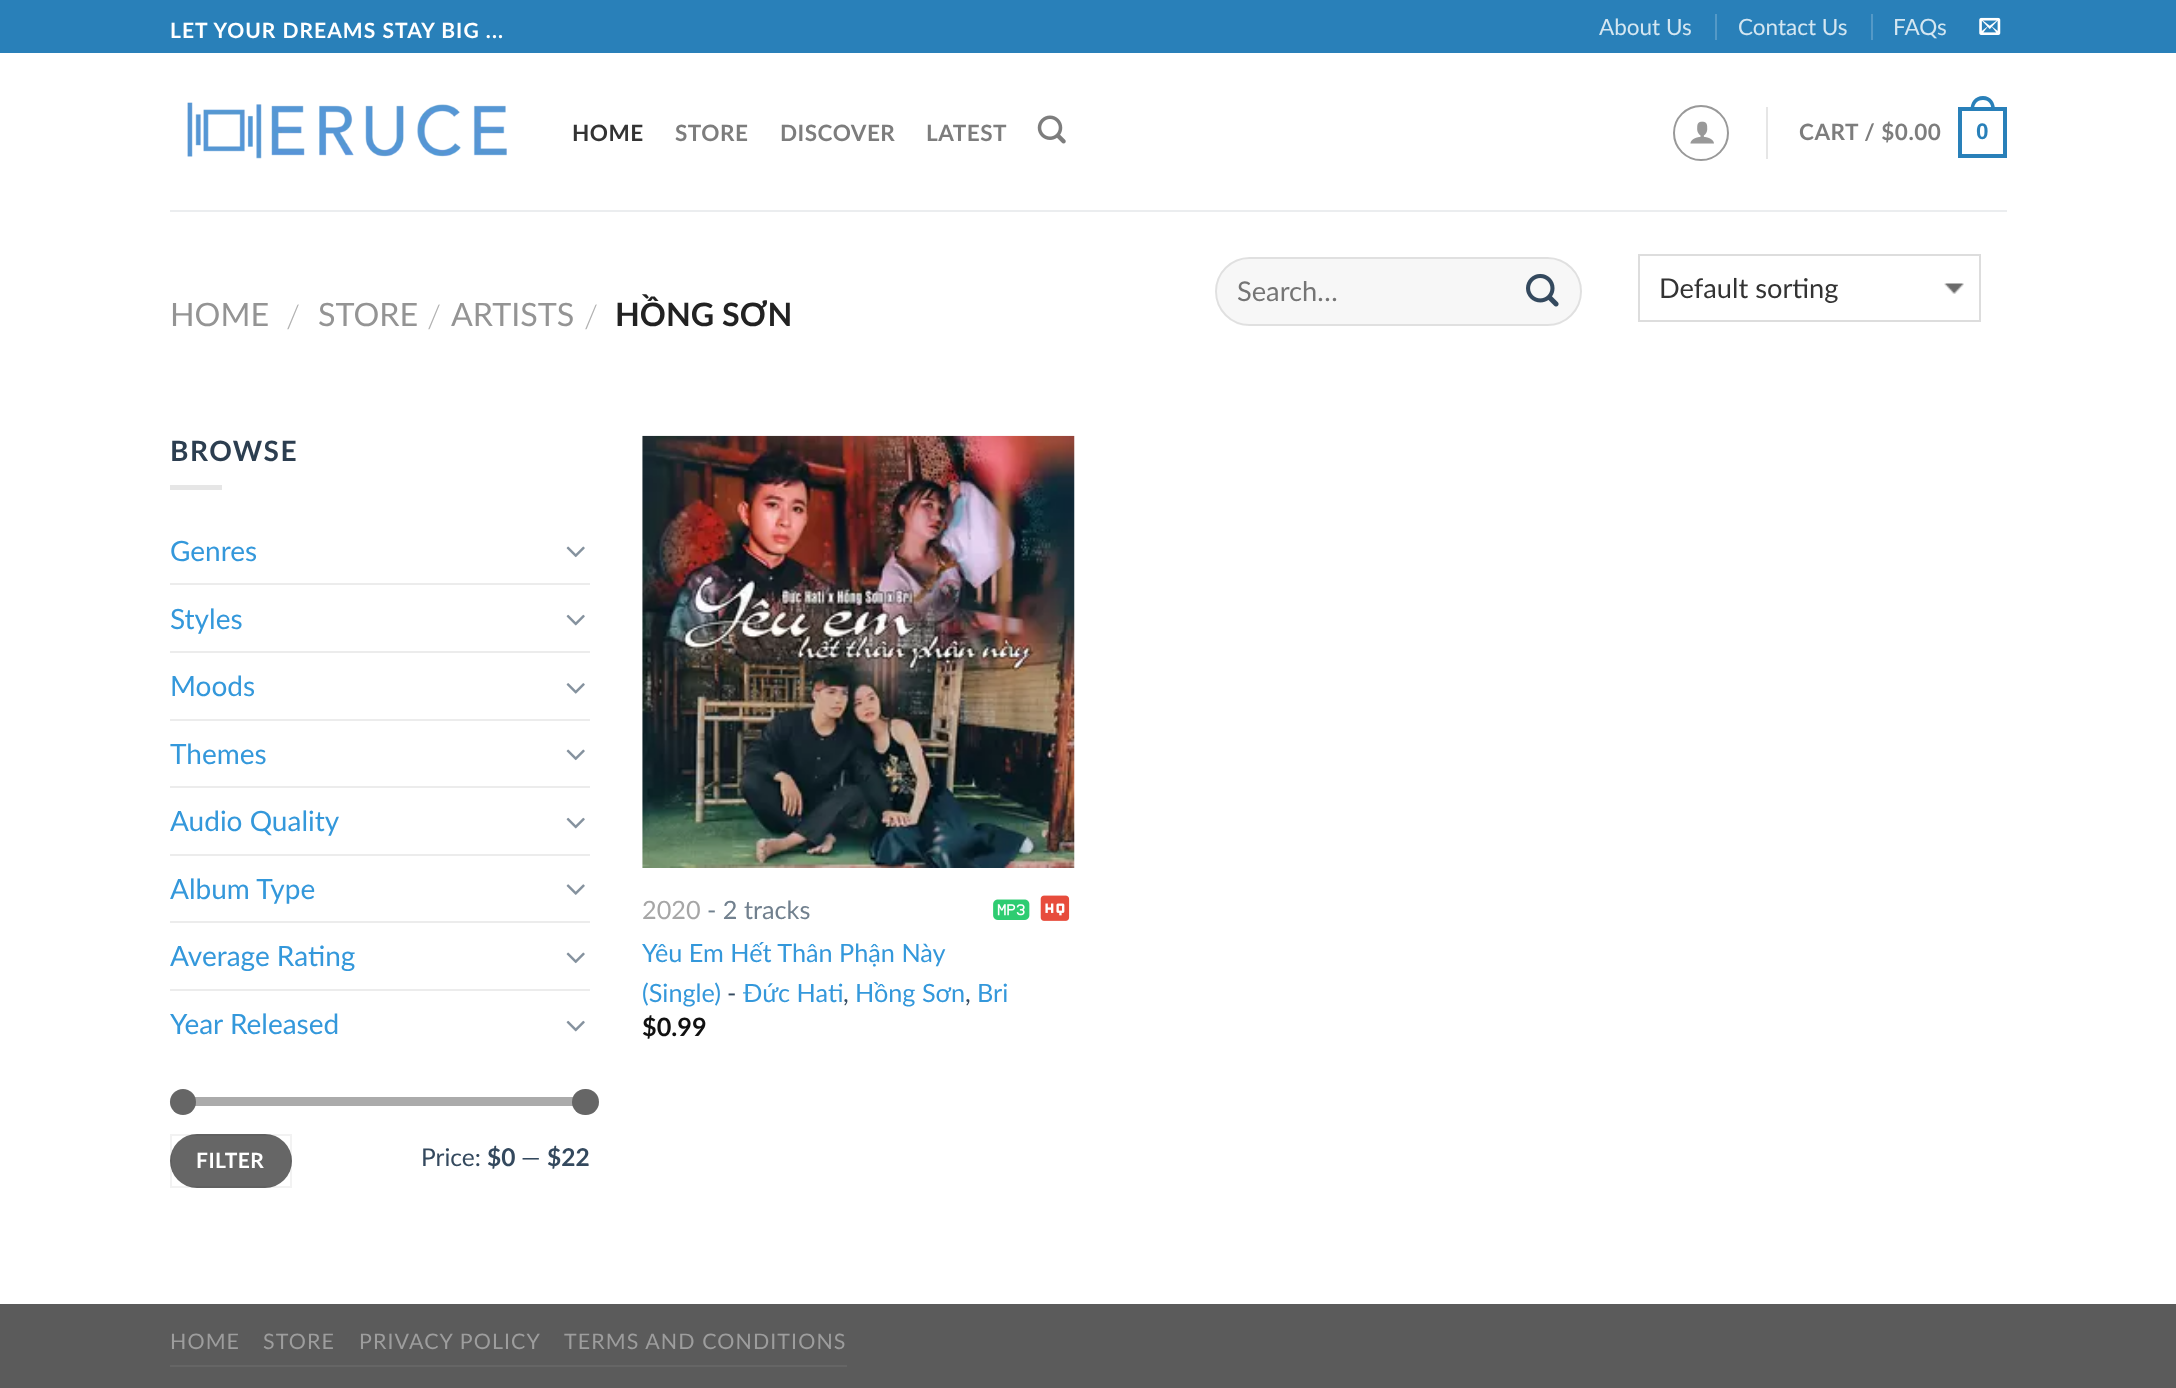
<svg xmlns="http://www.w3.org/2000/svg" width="2176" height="1388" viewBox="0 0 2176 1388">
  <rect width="100%" height="100%" fill="#ffffff"/>
  <rect x="0" y="0" width="2176" height="53" fill="#2980b9"/>
  <text x="170" y="38" font-family="Lato" font-size="21" font-weight="bold" letter-spacing="1.05" fill="#ffffff">LET YOUR DREAMS STAY BIG ...</text>
  <text x="1599" y="35" font-family="Lato" font-size="22.5" fill="#d4e6f1">About Us</text>
  <rect x="1715" y="14" width="2" height="26" fill="#5499c7"/>
  <text x="1738" y="35" font-family="Lato" font-size="22.5" fill="#d4e6f1">Contact Us</text>
  <rect x="1871" y="14" width="2" height="26" fill="#5499c7"/>
  <text x="1893" y="35" font-family="Lato" font-size="22.5" fill="#d4e6f1">FAQs</text>
  <image x="1979" y="17" width="22" height="18" href="img1.png"/>
  <image x="187" y="102" width="320" height="57" href="img2.png"/>
  <text x="572" y="141" font-family="Lato" font-size="22.5" font-weight="bold" letter-spacing="0.5" fill="#333333">HOME</text>
  <text x="675" y="141" font-family="Lato" font-size="22.5" font-weight="bold" letter-spacing="0.5" fill="#7d7d7d">STORE</text>
  <text x="780" y="141" font-family="Lato" font-size="22.5" font-weight="bold" letter-spacing="0.5" fill="#7d7d7d">DISCOVER</text>
  <text x="926" y="141" font-family="Lato" font-size="22.5" font-weight="bold" letter-spacing="0.5" fill="#7d7d7d">LATEST</text>
  <image x="1037" y="115" width="29" height="29" href="img3.png"/>
  <circle cx="1701" cy="133" r="27" fill="none" stroke="#999999" stroke-width="2"/>
  <image x="1690" y="121" width="24" height="23" href="img4.png"/>
  <rect x="1766" y="107" width="2" height="52" fill="#e6e6e6"/>
  <text x="1799" y="140" font-family="Lato" font-size="22.5" font-weight="bold" letter-spacing="0.5" fill="#7d7d7d">CART / $0.00</text>
  <rect x="1960" y="109" width="45" height="47" fill="none" stroke="#2980b9" stroke-width="4"/>
  <path d="M1983 96C1991 96 1995 102.5 1995 110H1970.5C1970.5 102.5 1974.5 96 1983 96ZM1983 100C1989 100 1991.5 104.5 1991.5 110H1974C1974 104.5 1976.5 100 1983 100Z" fill="#2980b9" fill-rule="evenodd"/>
  <text x="1976" y="139" font-family="Liberation Sans" font-size="22.5" font-weight="bold" letter-spacing="0.5" fill="#2980b9">0</text>
  <rect x="170" y="210" width="1837" height="2" fill="#ebedef"/>
  <rect x="1215" y="257" width="367" height="69" rx="34.5" fill="#f7f7f7"/>
  <rect x="1216" y="258" width="365" height="67" rx="33.5" fill="none" stroke="#000000" stroke-opacity="0.09" stroke-width="2"/>
  <text x="1237" y="301" font-family="Lato" font-size="27.25" fill="#757575">Search…</text>
  <image x="1526" y="273" width="33" height="34" href="img5.png"/>
  <image x="1944" y="283" width="20" height="11" href="img6.png"/>
  <rect x="1639" y="255" width="341" height="66" fill="none" stroke="#dddddd" stroke-width="2"/>
  <text x="1659" y="298" font-family="Lato" font-size="27.25" fill="#333333">Default sorting</text>
  <text x="170" y="326" font-family="Lato" font-size="32.25" fill="#949494">HOME</text>
  <text x="286" y="328" font-family="Lato" font-size="32.25" font-weight="300" fill="#b2b2b2">/</text>
  <text x="318" y="326" font-family="Lato" font-size="32.25" fill="#949494">STORE</text>
  <text x="427" y="328" font-family="Lato" font-size="32.25" font-weight="300" fill="#b2b2b2">/</text>
  <text x="451" y="326" font-family="Lato" font-size="32.25" fill="#949494">ARTISTS</text>
  <text x="584" y="328" font-family="Lato" font-size="32.25" font-weight="300" fill="#b2b2b2">/</text>
  <text x="615" y="326" font-family="Lato" font-size="32.25" font-weight="bold" fill="#222222">HỒNG SƠN</text>
  <text x="170" y="461" font-family="Lato" font-size="28" font-weight="bold" letter-spacing="1.5" fill="#2c3e50">BROWSE</text>
  <rect x="170" y="485" width="52" height="5" fill="#e6e6e6"/>
  <text x="170" y="561" font-family="Lato" font-size="28" fill="#3498db">Genres</text>
  <image x="566" y="546" width="19" height="12" href="img7.png"/>
  <rect x="170" y="583" width="420" height="2" fill="#ececec"/>
  <text x="170" y="629" font-family="Lato" font-size="28" fill="#3498db">Styles</text>
  <image x="566" y="614" width="19" height="12" href="img8.png"/>
  <rect x="170" y="651" width="420" height="2" fill="#ececec"/>
  <text x="170" y="696" font-family="Lato" font-size="28" fill="#3498db">Moods</text>
  <image x="566" y="683" width="19" height="11" href="img9.png"/>
  <rect x="170" y="719" width="420" height="2" fill="#ececec"/>
  <text x="170" y="764" font-family="Lato" font-size="28" fill="#3498db">Themes</text>
  <image x="566" y="749" width="19" height="12" href="img7.png"/>
  <rect x="170" y="786" width="420" height="2" fill="#ececec"/>
  <text x="170" y="831" font-family="Lato" font-size="28" fill="#3498db">Audio Quality</text>
  <image x="566" y="817" width="19" height="12" href="img8.png"/>
  <rect x="170" y="854" width="420" height="2" fill="#ececec"/>
  <text x="170" y="899" font-family="Lato" font-size="28" fill="#3498db">Album Type</text>
  <image x="566" y="884" width="19" height="11" href="img10.png"/>
  <rect x="170" y="921" width="420" height="2" fill="#ececec"/>
  <text x="170" y="966" font-family="Lato" font-size="28" fill="#3498db">Average Rating</text>
  <image x="566" y="952" width="19" height="12" href="img7.png"/>
  <rect x="170" y="989" width="420" height="2" fill="#ececec"/>
  <text x="170" y="1034" font-family="Lato" font-size="28" fill="#3498db">Year Released</text>
  <image x="566" y="1020" width="19" height="12" href="img8.png"/>
  <rect x="170" y="1097" width="420" height="9" rx="4.5" fill="#f1f1f1"/>
  <rect x="170" y="1097" width="420" height="9" rx="4.5" fill="#666666" fill-opacity="0.5"/>
  <circle cx="183" cy="1102" r="13" fill="#666666"/>
  <rect x="572" y="1089" width="27" height="26" rx="13" fill="#666666"/>
  <rect x="170" y="1134" width="122" height="54" rx="27" fill="#666666"/>
  <rect x="171" y="1135" width="120" height="52" fill="none" stroke="#000000" stroke-opacity="0.05" stroke-width="2"/>
  <text x="196" y="1168" font-family="Lato" font-size="21" font-weight="bold" letter-spacing="0.5" fill="#ffffff">FILTER</text>
  <text x="421" y="1166" font-family="Lato" font-size="24.5" fill="#34495e">Price:</text>
  <text x="487" y="1166" font-family="Lato" font-size="24.5" font-weight="bold" fill="#34495e">$0</text>
  <text x="521" y="1166" font-family="Lato" font-size="24.5" fill="#34495e">—</text>
  <text x="547" y="1166" font-family="Lato" font-size="24.5" font-weight="bold" fill="#34495e">$22</text>
  <image x="642" y="435" width="433" height="433" href="img11.png"/>
  <text x="642" y="919" font-family="Lato" font-size="25.25" fill="#a6a6a6">2020</text>
  <text x="707" y="919" font-family="Lato" font-size="25.25" fill="#71808e">- 2 tracks</text>
  <image x="993" y="899" width="37" height="21" href="img12.png"/>
  <image x="1040" y="895" width="30" height="26" href="img13.png"/>
  <text x="642" y="962" font-family="Lato" font-size="25.25" fill="#3498db">Yêu Em Hết Thân Phận Này</text>
  <text x="642" y="1002" font-family="Lato" font-size="25.25" fill="#3498db">(Single)</text>
  <text x="727" y="1002" font-family="Lato" font-size="25.25" fill="#34495e">-</text>
  <text x="743" y="1002" font-family="Lato" font-size="25.25" fill="#3498db">Đức Hati</text>
  <text x="855" y="1002" font-family="Lato" font-size="25.25" fill="#3498db">Hồng Sơn</text>
  <text x="977" y="1002" font-family="Lato" font-size="25.25" fill="#3498db">Bri</text>
  <text x="843" y="1002" font-family="Lato" font-size="25.25" fill="#34495e">,</text>
  <text x="965" y="1002" font-family="Lato" font-size="25.25" fill="#34495e">,</text>
  <text x="642" y="1036" font-family="Lato" font-size="25.25" font-weight="bold" fill="#111111">$0.99</text>
  <rect x="0" y="1304" width="2176" height="84" fill="#5b5b5b"/>
  <rect x="170" y="1365" width="677" height="2" fill="#656565"/>
  <text x="170" y="1349" font-family="Lato" font-size="21.4" letter-spacing="1.1" fill="#9d9d9d">HOME</text>
  <text x="263" y="1349" font-family="Lato" font-size="21.4" letter-spacing="1.1" fill="#9d9d9d">STORE</text>
  <text x="359" y="1349" font-family="Lato" font-size="21.4" letter-spacing="1.1" fill="#9d9d9d">PRIVACY POLICY</text>
  <text x="564" y="1349" font-family="Lato" font-size="21.4" letter-spacing="1.1" fill="#9d9d9d">TERMS AND CONDITIONS</text>
</svg>
